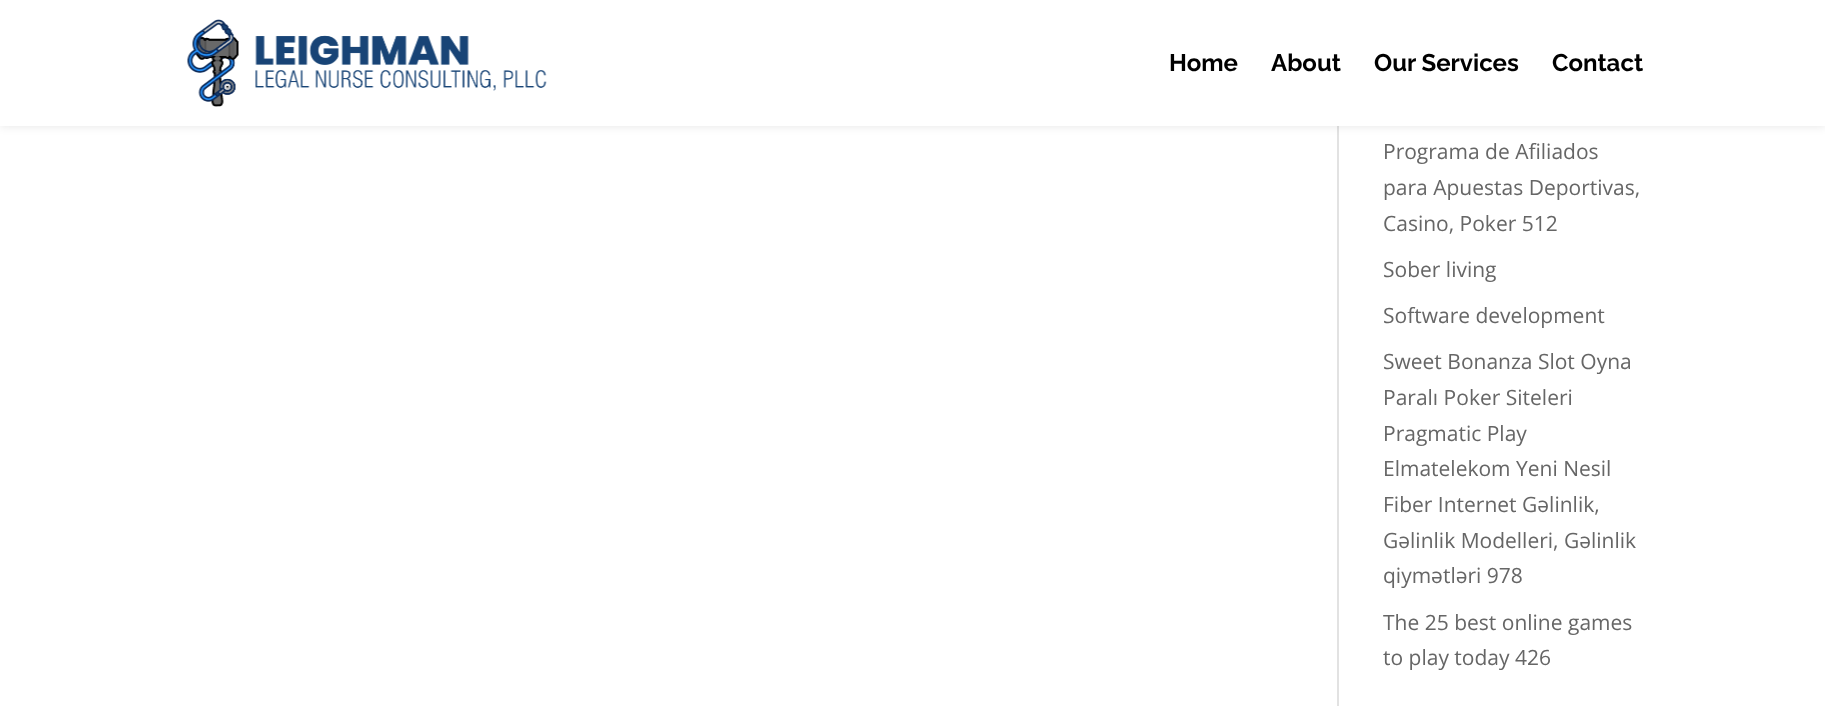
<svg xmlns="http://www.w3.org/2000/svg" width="1825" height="706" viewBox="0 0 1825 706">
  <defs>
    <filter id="blur1" x="-50%" y="-200%" width="200%" height="500%"><feGaussianBlur stdDeviation="5"/></filter>
  </defs>
  <rect width="100%" height="100%" fill="#ffffff"/>
  <rect x="1337" y="126" width="2" height="580" fill="#e2e2e2"/>
  <rect x="0" y="0" width="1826" height="126" fill="#000000" fill-opacity="0.1" filter="url(#blur1)"/>
  <rect x="0" y="0" width="1825" height="126" fill="#ffffff"/>
  <image x="187" y="19" width="360" height="88" href="img1.png"/>
  <text x="1169" y="71" font-family="Raleway" font-size="24" font-weight="bold" fill="#000000">Home</text>
  <text x="1271" y="71" font-family="Raleway" font-size="24" font-weight="bold" fill="#000000">About</text>
  <text x="1374" y="71" font-family="Raleway" font-size="24" font-weight="bold" fill="#000000">Our Services</text>
  <text x="1552" y="71" font-family="Raleway" font-size="24" font-weight="bold" fill="#000000">Contact</text>
  <text x="1383" y="159" font-family="Open Sans" font-size="21" fill="#666666">Programa de Afiliados</text>
  <text x="1383" y="195" font-family="Open Sans" font-size="21" fill="#666666">para Apuestas Deportivas,</text>
  <text x="1383" y="231" font-family="Open Sans" font-size="21" fill="#666666">Casino, Poker 512</text>
  <text x="1383" y="277" font-family="Open Sans" font-size="21" fill="#666666">Sober living</text>
  <text x="1383" y="323" font-family="Open Sans" font-size="21" fill="#666666">Software development</text>
  <text x="1383" y="369" font-family="Open Sans" font-size="21" fill="#666666">Sweet Bonanza Slot Oyna</text>
  <text x="1383" y="405" font-family="Open Sans" font-size="21" fill="#666666">Paralı Poker Siteleri</text>
  <text x="1383" y="441" font-family="Open Sans" font-size="21" fill="#666666">Pragmatic Play</text>
  <text x="1383" y="476" font-family="Open Sans" font-size="21" fill="#666666">Elmatelekom Yeni Nesil</text>
  <text x="1383" y="512" font-family="Open Sans" font-size="21" fill="#666666">Fiber Internet Gəlinlik,</text>
  <text x="1383" y="548" font-family="Open Sans" font-size="21" fill="#666666">Gəlinlik Modelleri, Gəlinlik</text>
  <text x="1383" y="583" font-family="Open Sans" font-size="21" fill="#666666">qiymətləri 978</text>
  <text x="1383" y="630" font-family="Open Sans" font-size="21" fill="#666666">The 25 best online games</text>
  <text x="1383" y="665" font-family="Open Sans" font-size="21" fill="#666666">to play today 426</text>
</svg>
